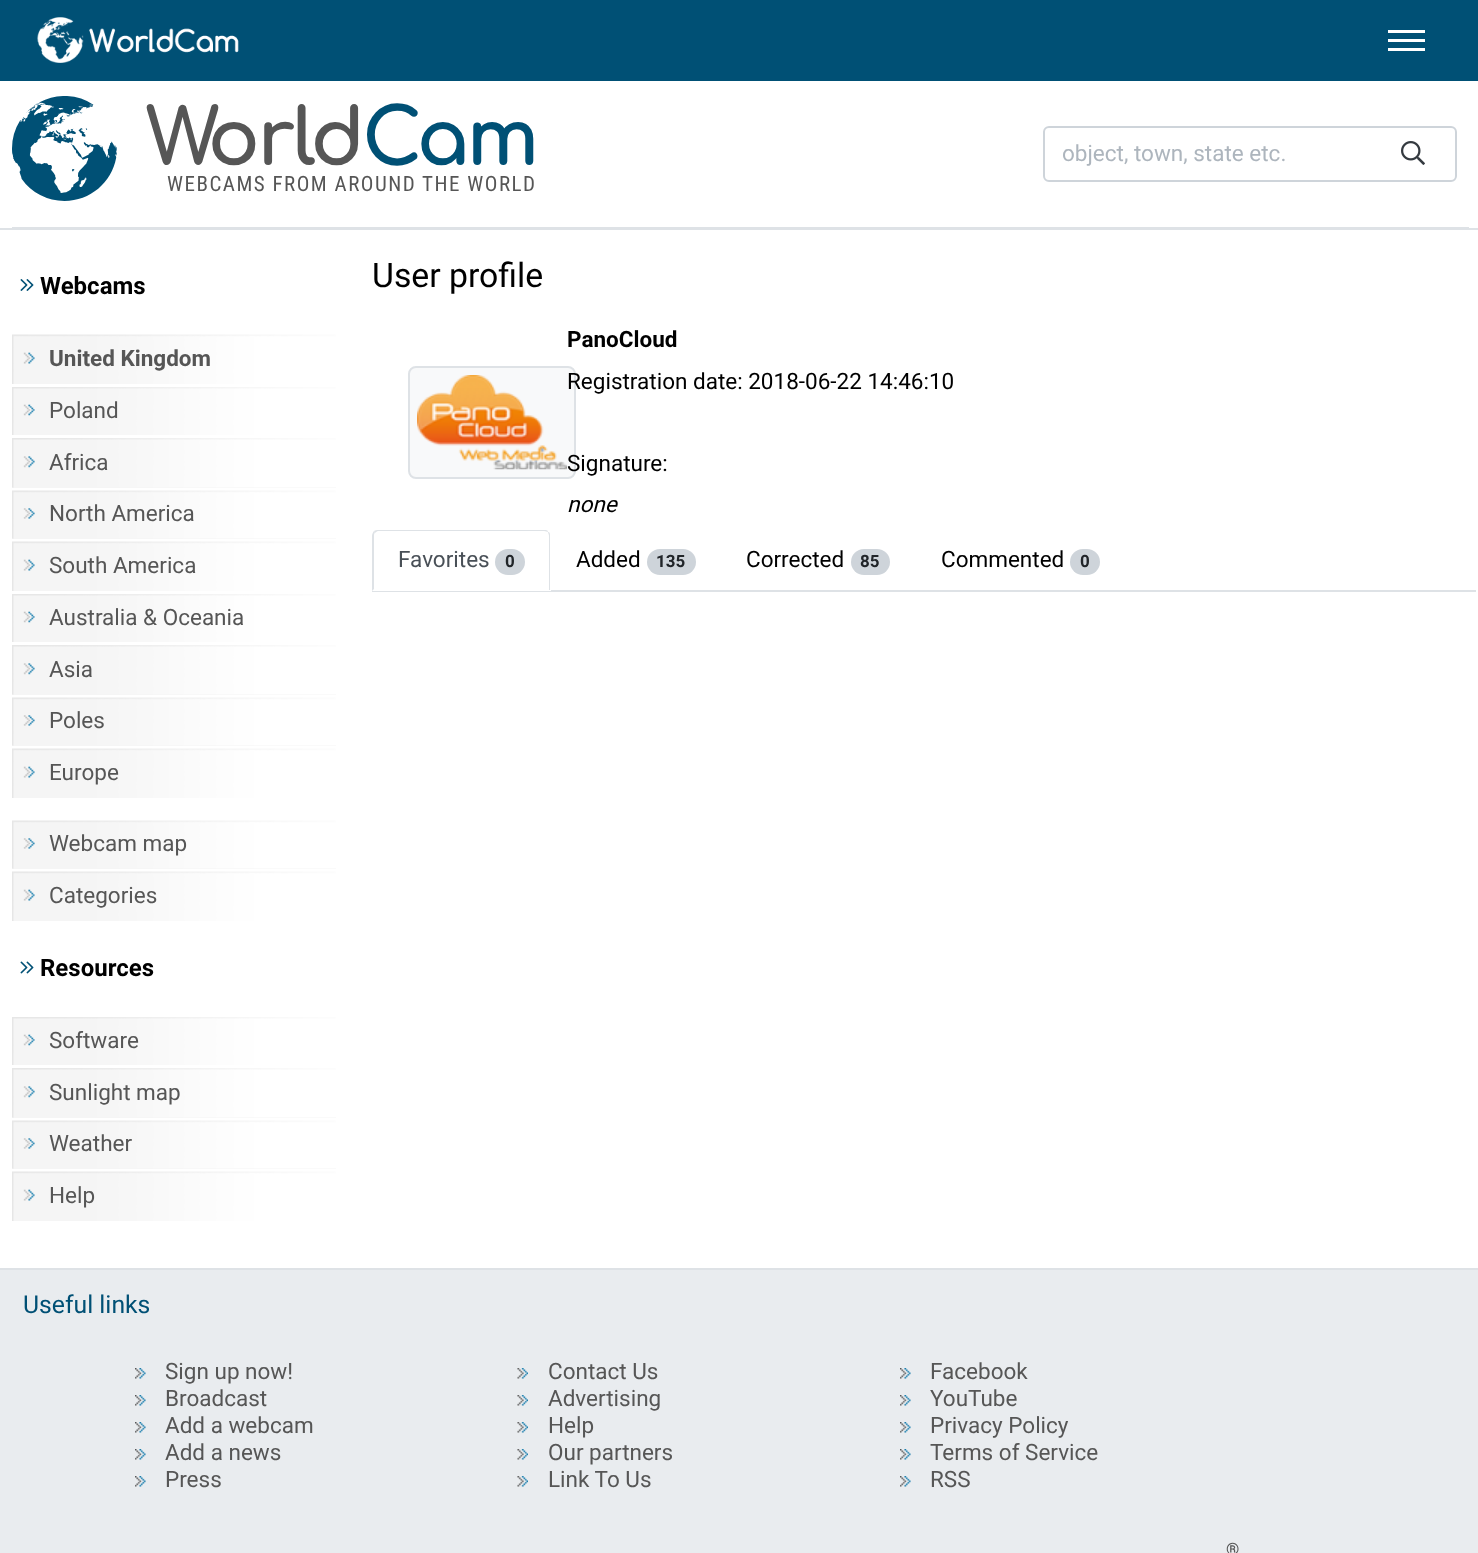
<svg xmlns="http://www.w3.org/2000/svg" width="1478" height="1553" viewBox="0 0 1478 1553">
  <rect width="100%" height="100%" fill="#ffffff"/>
  <rect x="0" y="0" width="1478" height="81" fill="#005075"/>
  <image x="37" y="17" width="202" height="46" href="img1.png"/>
  <rect x="1388" y="30" width="37" height="3" fill="#ffffff"/>
  <rect x="1388" y="39" width="37" height="3" fill="#ffffff"/>
  <rect x="1388" y="48" width="37" height="3" fill="#ffffff"/>
  <rect x="12" y="227" width="1457" height="1" fill="#dee2e6"/>
  <image x="12" y="96" width="105" height="105" href="img2.png"/>
  <text x="146" y="165" font-family="Comfortaa" font-size="78" font-weight="bold" letter-spacing="-3" fill="#565656">World</text>
  <text x="362" y="165" font-family="Comfortaa" font-size="78" font-weight="bold" letter-spacing="-3" fill="#005075">Cam</text>
  <text x="167" y="191" font-family="Roboto Condensed" font-size="21" letter-spacing="1.5" fill="#565656">WEBCAMS FROM AROUND THE WORLD</text>
  <rect x="1044" y="127" width="412" height="54" rx="5" fill="none" stroke="#ced4da" stroke-width="2"/>
  <text x="1062" y="161" font-family="Roboto" font-size="22.5" fill="#adb5bd">object, town, state etc.</text>
  <image x="1401" y="141" width="24" height="24" href="img3.png"/>
  <rect x="0" y="228" width="1478" height="2" fill="#dee2e6"/>
  <image x="20" y="279" width="14" height="12" href="img4.png"/>
  <text x="40" y="294" font-family="Roboto" font-size="24" font-weight="bold" fill="#000000">Webcams</text>
  <rect x="13" y="335" width="266" height="49" fill="#f5f5f5"/>
  <image x="12" y="334" width="324" height="50" href="img5.png"/>
  <text x="49" y="366" font-family="Roboto" font-size="22.5" font-weight="bold" fill="#565656">United Kingdom</text>
  <rect x="13" y="388" width="266" height="47" fill="#f5f5f5"/>
  <image x="12" y="387" width="324" height="48" href="img6.png"/>
  <text x="49" y="418" font-family="Roboto" font-size="22.5" fill="#565656">Poland</text>
  <rect x="12" y="439" width="324" height="49" fill="#f5f5f5"/>
  <image x="12" y="438" width="324" height="50" href="img7.png"/>
  <text x="49" y="470" font-family="Roboto" font-size="22.5" fill="#565656">Africa</text>
  <rect x="12" y="491" width="324" height="48" fill="#f5f5f5"/>
  <image x="12" y="490" width="324" height="49" href="img8.png"/>
  <text x="49" y="521" font-family="Roboto" font-size="22.5" fill="#565656">North America</text>
  <rect x="13" y="542" width="266" height="49" fill="#f5f5f5"/>
  <image x="12" y="541" width="324" height="50" href="img5.png"/>
  <text x="49" y="573" font-family="Roboto" font-size="22.5" fill="#565656">South America</text>
  <rect x="13" y="595" width="266" height="47" fill="#f5f5f5"/>
  <image x="12" y="594" width="324" height="48" href="img6.png"/>
  <text x="49" y="625" font-family="Roboto" font-size="22.5" fill="#565656">Australia &amp; Oceania</text>
  <rect x="12" y="646" width="324" height="49" fill="#f5f5f5"/>
  <image x="12" y="645" width="324" height="50" href="img7.png"/>
  <text x="49" y="677" font-family="Roboto" font-size="22.5" fill="#565656">Asia</text>
  <rect x="12" y="698" width="324" height="48" fill="#f5f5f5"/>
  <image x="12" y="697" width="324" height="49" href="img8.png"/>
  <text x="49" y="728" font-family="Roboto" font-size="22.5" fill="#565656">Poles</text>
  <rect x="13" y="749" width="266" height="49" fill="#f5f5f5"/>
  <image x="12" y="748" width="324" height="50" href="img5.png"/>
  <text x="49" y="780" font-family="Roboto" font-size="22.5" fill="#565656">Europe</text>
  <rect x="12" y="821" width="324" height="48" fill="#f5f5f5"/>
  <image x="12" y="820" width="324" height="49" href="img8.png"/>
  <text x="49" y="851" font-family="Roboto" font-size="22.5" fill="#565656">Webcam map</text>
  <rect x="13" y="872" width="266" height="49" fill="#f5f5f5"/>
  <image x="12" y="871" width="324" height="50" href="img5.png"/>
  <text x="49" y="903" font-family="Roboto" font-size="22.5" fill="#565656">Categories</text>
  <image x="20" y="961" width="14" height="13" href="img9.png"/>
  <text x="40" y="976" font-family="Roboto" font-size="24" font-weight="bold" fill="#000000">Resources</text>
  <rect x="13" y="1018" width="266" height="47" fill="#f5f5f5"/>
  <image x="12" y="1017" width="324" height="48" href="img6.png"/>
  <text x="49" y="1048" font-family="Roboto" font-size="22.5" fill="#565656">Software</text>
  <rect x="12" y="1069" width="324" height="49" fill="#f5f5f5"/>
  <image x="12" y="1068" width="324" height="50" href="img7.png"/>
  <text x="49" y="1100" font-family="Roboto" font-size="22.5" fill="#565656">Sunlight map</text>
  <rect x="12" y="1121" width="324" height="48" fill="#f5f5f5"/>
  <image x="12" y="1120" width="324" height="49" href="img8.png"/>
  <text x="49" y="1151" font-family="Roboto" font-size="22.5" fill="#565656">Weather</text>
  <rect x="13" y="1172" width="266" height="49" fill="#f5f5f5"/>
  <image x="12" y="1171" width="324" height="50" href="img5.png"/>
  <text x="49" y="1203" font-family="Roboto" font-size="22.5" fill="#565656">Help</text>
  <text x="372" y="287" font-family="Roboto" font-size="33.75" fill="#000000">User profile</text>
  <rect x="409" y="367" width="166" height="111" rx="7" fill="#f8f9fa" stroke="#dee2e6" stroke-width="2"/>
  <image x="417" y="375" width="150" height="95" href="img10.png"/>
  <text x="567" y="347" font-family="Roboto" font-size="22.5" font-weight="bold" fill="#000000">PanoCloud</text>
  <text x="567" y="389" font-family="Roboto" font-size="22.5" fill="#000000">Registration date: 2018-06-22 14:46:10</text>
  <text x="567" y="471" font-family="Roboto" font-size="22.5" fill="#000000">Signature:</text>
  <text x="567" y="512" font-family="Roboto" font-size="22.5" font-style="italic" fill="#000000">none</text>
  <rect x="372" y="590" width="1104" height="2" fill="#dee2e6"/>
  <path d="M378 530H545C548.5 530 551 532.5 551 536V591H372V536C372 532.5 374.5 530 378 530Z" fill="#ffffff"/>
  <path d="M378 530C377 530 375 530 374 531L375 533C376 532 377 531 378 531H544C546 531 547 532 548 532C548 530 546 530 544 530Z" fill="#dee2e6"/>
  <path d="M550 590V536C550 534 550 532 548 532C548 533 549 534 549 536V590Z" fill="#dee2e6"/>
  <path d="M372 591L374 589V536C374 535 374 533 375 533L374 531C373 532 372 534 372 536Z" fill="#dee2e6"/>
  <text x="398" y="567" font-family="Roboto" font-size="22.5" fill="#495057">Favorites</text>
  <rect x="495" y="549" width="30" height="26" rx="13" fill="#ced4da"/>
  <text x="505" y="567" font-family="Roboto" font-size="17" font-weight="bold" fill="#212529">0</text>
  <text x="576" y="567" font-family="Roboto" font-size="22.5" fill="#000000">Added</text>
  <rect x="647" y="549" width="49" height="26" rx="13" fill="#ced4da"/>
  <text x="656" y="567" font-family="Roboto" font-size="17" font-weight="bold" fill="#212529">135</text>
  <text x="746" y="567" font-family="Roboto" font-size="22.5" fill="#000000">Corrected</text>
  <rect x="851" y="549" width="39" height="26" rx="13" fill="#ced4da"/>
  <text x="860" y="567" font-family="Roboto" font-size="17" font-weight="bold" fill="#212529">85</text>
  <text x="941" y="567" font-family="Roboto" font-size="22.5" fill="#000000">Commented</text>
  <rect x="1070" y="549" width="30" height="26" rx="13" fill="#ced4da"/>
  <text x="1080" y="567" font-family="Roboto" font-size="17" font-weight="bold" fill="#212529">0</text>
  <rect x="0" y="1270" width="1478" height="283" fill="#e9ecef"/>
  <rect x="0" y="1268" width="1478" height="2" fill="#dee2e6"/>
  <text x="23" y="1313" font-family="Roboto" font-size="24.75" fill="#005075">Useful links</text>
  <image x="135" y="1368" width="11" height="11" href="img11.png"/>
  <text x="165" y="1379" font-family="Roboto" font-size="22.5" fill="#565656">Sign up now!</text>
  <image x="135" y="1395" width="11" height="11" href="img11.png"/>
  <text x="165" y="1406" font-family="Roboto" font-size="22.5" fill="#565656">Broadcast</text>
  <image x="135" y="1422" width="11" height="11" href="img11.png"/>
  <text x="165" y="1433" font-family="Roboto" font-size="22.5" fill="#565656">Add a webcam</text>
  <image x="135" y="1449" width="11" height="11" href="img11.png"/>
  <text x="165" y="1460" font-family="Roboto" font-size="22.5" fill="#565656">Add a news</text>
  <image x="135" y="1476" width="11" height="11" href="img11.png"/>
  <text x="165" y="1487" font-family="Roboto" font-size="22.5" fill="#565656">Press</text>
  <image x="517" y="1368" width="11" height="11" href="img12.png"/>
  <text x="548" y="1379" font-family="Roboto" font-size="22.5" fill="#565656">Contact Us</text>
  <image x="517" y="1395" width="11" height="11" href="img12.png"/>
  <text x="548" y="1406" font-family="Roboto" font-size="22.5" fill="#565656">Advertising</text>
  <image x="517" y="1422" width="11" height="11" href="img12.png"/>
  <text x="548" y="1433" font-family="Roboto" font-size="22.5" fill="#565656">Help</text>
  <image x="517" y="1449" width="11" height="11" href="img12.png"/>
  <text x="548" y="1460" font-family="Roboto" font-size="22.5" fill="#565656">Our partners</text>
  <image x="517" y="1476" width="11" height="11" href="img12.png"/>
  <text x="548" y="1487" font-family="Roboto" font-size="22.5" fill="#565656">Link To Us</text>
  <image x="900" y="1368" width="11" height="11" href="img11.png"/>
  <text x="930" y="1379" font-family="Roboto" font-size="22.5" fill="#565656">Facebook</text>
  <image x="900" y="1395" width="11" height="11" href="img11.png"/>
  <text x="930" y="1406" font-family="Roboto" font-size="22.5" fill="#565656">YouTube</text>
  <image x="900" y="1422" width="11" height="11" href="img11.png"/>
  <text x="930" y="1433" font-family="Roboto" font-size="22.5" fill="#565656">Privacy Policy</text>
  <image x="900" y="1449" width="11" height="11" href="img11.png"/>
  <text x="930" y="1460" font-family="Roboto" font-size="22.5" fill="#565656">Terms of Service</text>
  <image x="900" y="1476" width="11" height="11" href="img11.png"/>
  <text x="930" y="1487" font-family="Roboto" font-size="22.5" fill="#565656">RSS</text>
  <text x="1226" y="1555" font-family="Roboto" font-size="17" font-weight="bold" fill="#565656">®</text>
</svg>
